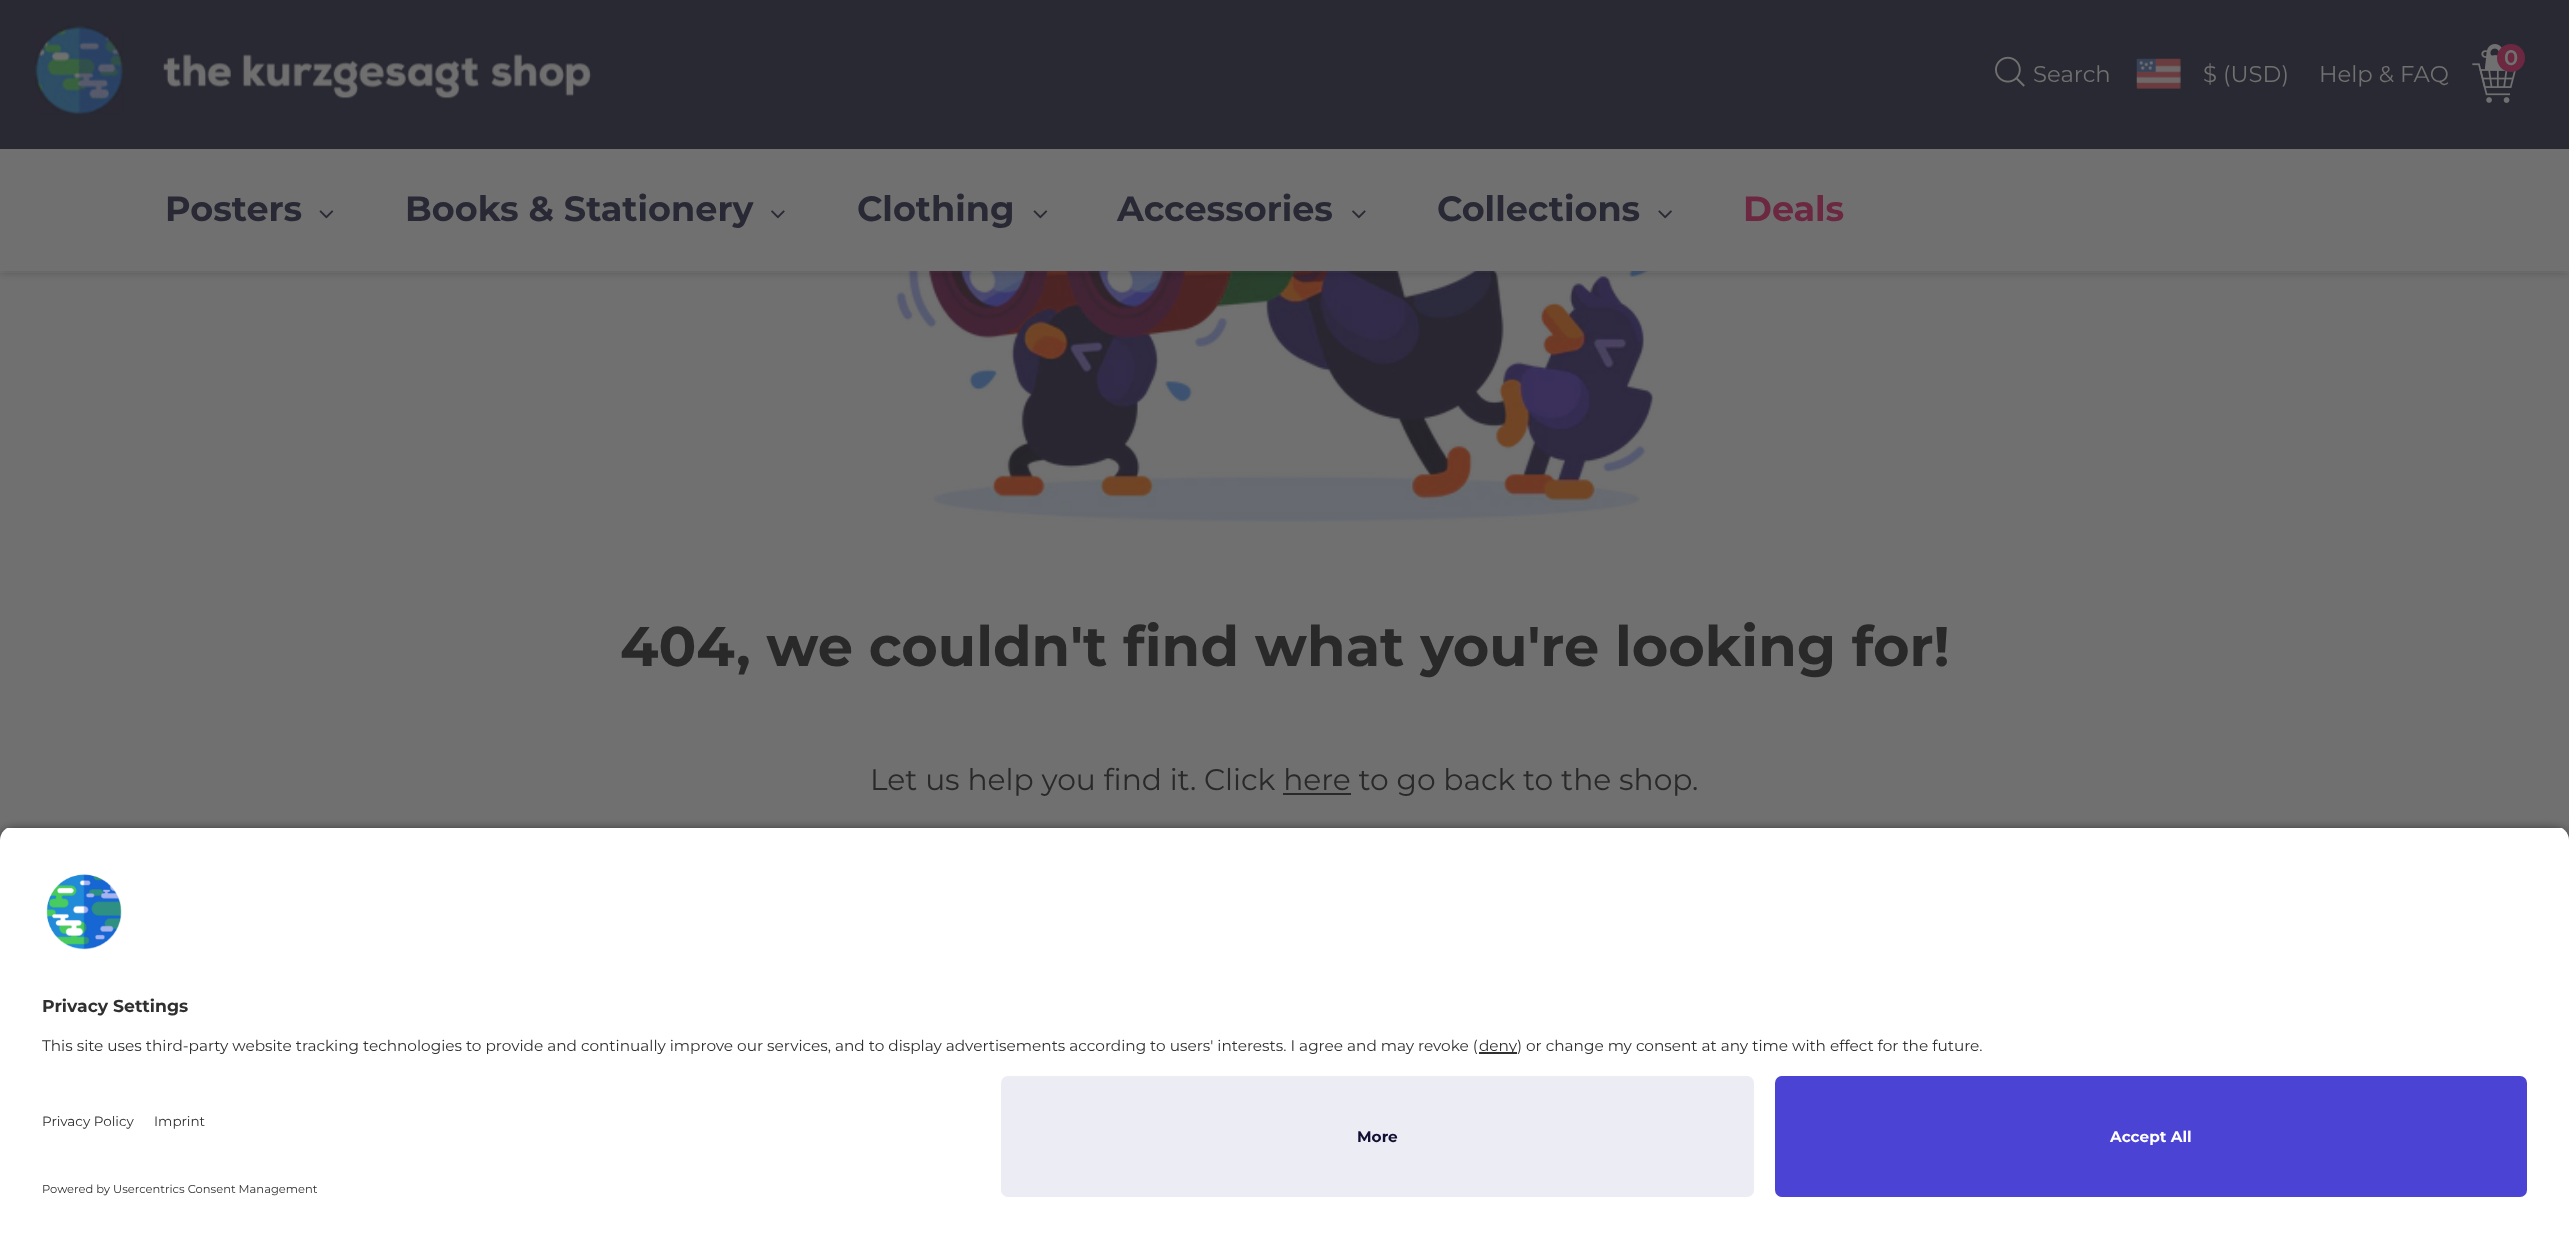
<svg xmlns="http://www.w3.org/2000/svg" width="2569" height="1238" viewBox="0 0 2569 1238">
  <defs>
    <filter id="blur1" x="-50%" y="-200%" width="200%" height="500%"><feGaussianBlur stdDeviation="4.5"/></filter>
    <filter id="blur2" x="-50%" y="-200%" width="200%" height="500%"><feGaussianBlur stdDeviation="6"/></filter>
    <clipPath id="clip1"><path d="M14 826H2555C2562.5 826 2569 832.5 2569 840V1062H0V840C0 832.5 6.5 826 14 826Z"/></clipPath>
  </defs>
  <rect width="100%" height="100%" fill="#707070"/>
  <image x="895" y="271" width="759" height="251" href="img9.png"/>
  <rect x="0" y="2" width="2569" height="271" fill="#242424" fill-opacity="0.2" filter="url(#blur1)"/>
  <rect x="0" y="0" width="2569" height="149" fill="#292933"/>
  <image x="35" y="26" width="88" height="88" href="img1.png"/>
  <image x="162" y="54" width="430" height="45" href="img2.png"/>
  <image x="2472" y="44" width="44" height="59" href="img3.png"/>
  <circle cx="2511" cy="58" r="14" fill="#6c2840"/>
  <text x="2504" y="65" font-family="Montserrat" font-size="21" font-weight="600" fill="#707070">0</text>
  <image x="1995" y="56" width="30" height="31" href="img4.png"/>
  <text x="2033" y="82" font-family="Montserrat" font-size="22.75" fill="#707070">Search</text>
  <image x="2136" y="58" width="45" height="31" href="img5.png"/>
  <text x="2203" y="82" font-family="Montserrat" font-size="22.75" fill="#707070">$ (USD)</text>
  <text x="2319" y="82" font-family="Montserrat" font-size="22.75" fill="#707070">Help &amp; FAQ</text>
  <rect x="0" y="149" width="2569" height="122" fill="#707070"/>
  <text x="165" y="221" font-family="Montserrat" font-size="35" font-weight="bold" fill="#282934">Posters</text>
  <image x="319" y="210" width="15" height="9" href="img6.png"/>
  <text x="405" y="221" font-family="Montserrat" font-size="35" font-weight="bold" fill="#282934">Books &amp; Stationery</text>
  <image x="771" y="210" width="14" height="9" href="img7.png"/>
  <text x="857" y="221" font-family="Montserrat" font-size="35" font-weight="bold" fill="#282934">Clothing</text>
  <image x="1033" y="210" width="15" height="9" href="img6.png"/>
  <text x="1117" y="221" font-family="Montserrat" font-size="35" font-weight="bold" fill="#282934">Accessories</text>
  <image x="1352" y="210" width="14" height="9" href="img7.png"/>
  <text x="1437" y="221" font-family="Montserrat" font-size="35" font-weight="bold" fill="#282934">Collections</text>
  <image x="1658" y="210" width="14" height="9" href="img8.png"/>
  <text x="1743" y="221" font-family="Montserrat" font-size="35" font-weight="bold" fill="#6c2840">Deals</text>
  <text x="620" y="666" font-family="Montserrat" font-size="55.8" font-weight="bold" fill="#292929">404, we couldn't find what you're looking for!</text>
  <text x="870" y="790" font-family="Montserrat" font-size="29.75" fill="#292929">Let us help you find it. Click here to go back to the shop.</text>
  <rect x="1283" y="793" width="68" height="2" fill="#292929"/>
  <rect x="0" y="831" width="2569" height="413" rx="14" fill="#000000" fill-opacity="0.8" filter="url(#blur2)"/>
  <g clip-path="url(#clip1)">
    <rect x="0" y="828" width="2569" height="234" fill="#ffffff"/>
  </g>
  <image x="46" y="874" width="76" height="76" href="img10.png"/>
  <text x="42" y="1012" font-family="Montserrat" font-size="17.25" font-weight="bold" fill="#303030">Privacy Settings</text>
  <text x="42" y="1051" font-family="Montserrat" font-size="15.3" fill="#303030">This site uses third-party website tracking technologies to provide and continually improve our services, and to display advertisements according to users' interests. I agree and may revoke (</text>
  <rect x="1479" y="1052" width="38" height="2" fill="#303030"/>
  <text x="1479" y="1051" font-family="Montserrat" font-size="15.3" fill="#303030">deny) or change my consent at any time with effect for the future.</text>
  <rect x="0" y="1062" width="2569" height="176" fill="#ffffff"/>
  <text x="42" y="1126" font-family="Montserrat" font-size="13.5" fill="#303030">Privacy Policy</text>
  <text x="154" y="1126" font-family="Montserrat" font-size="13.5" fill="#303030">Imprint</text>
  <text x="42" y="1193" font-family="Montserrat" font-size="11.5" fill="#303030">Powered by Usercentrics Consent Management</text>
  <rect x="1001" y="1076" width="753" height="121" rx="7" fill="#ecedf4"/>
  <text x="1357" y="1142" font-family="Montserrat" font-size="15.3" font-weight="bold" fill="#110f32">More</text>
  <rect x="1775" y="1076" width="752" height="121" rx="7" fill="#4a43d3"/>
  <text x="2110" y="1142" font-family="Montserrat" font-size="15.3" font-weight="bold" fill="#ffffff">Accept All</text>
</svg>
